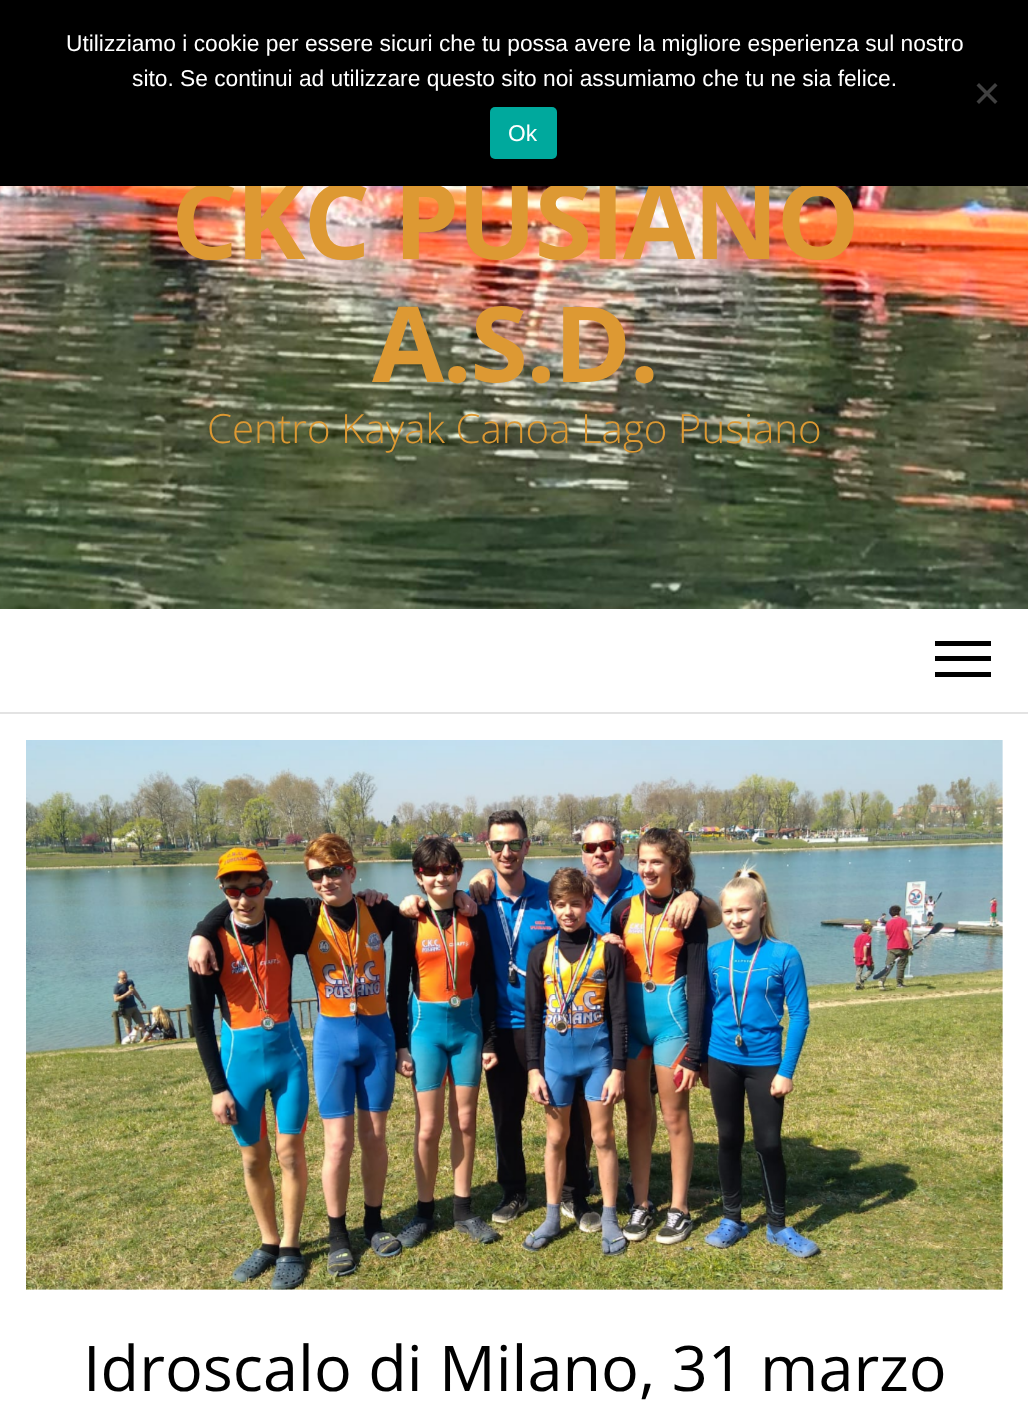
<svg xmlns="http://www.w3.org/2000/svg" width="1028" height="1424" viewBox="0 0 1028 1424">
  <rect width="100%" height="100%" fill="#ffffff"/>
  <image x="0" y="186" width="1028" height="423" href="img1.png"/>
  <text x="171" y="259" font-family="Open Sans" font-size="105" font-weight="bold" letter-spacing="-2.1" fill="#dd9933">CKC PUSIANO</text>
  <rect x="0" y="0" width="1028" height="186" fill="#000000"/>
  <text x="66" y="51" font-family="Liberation Sans" font-size="22.75" fill="#ffffff">Utilizziamo i cookie per essere sicuri che tu possa avere la migliore esperienza sul nostro</text>
  <text x="132" y="86" font-family="Liberation Sans" font-size="22.75" fill="#ffffff">sito. Se continui ad utilizzare questo sito noi assumiamo che tu ne sia felice.</text>
  <path d="M995 83L997.5 85.5L979 104L976.5 101.5Z" fill="#404040"/>
  <path d="M976.5 85.5L979 83L997.5 101.5L995 104Z" fill="#404040"/>
  <rect x="490" y="107" width="67" height="52" rx="5" fill="#00a99d"/>
  <text x="508" y="141" font-family="Liberation Sans" font-size="22.75" fill="#ffffff">Ok</text>
  <text x="372" y="382" font-family="Open Sans" font-size="105" font-weight="bold" letter-spacing="-2.1" fill="#dd9933">A.S.D.</text>
  <text x="207" y="443" font-family="Open Sans" font-size="40.25" font-weight="300" fill="#dd9933">Centro Kayak Canoa Lago Pusiano</text>
  <rect x="0" y="712" width="1028" height="2" fill="#e3e3e3"/>
  <rect x="935" y="641" width="56" height="5" fill="#000000"/>
  <rect x="935" y="656" width="56" height="5" fill="#000000"/>
  <rect x="935" y="672" width="56" height="5" fill="#000000"/>
  <image x="26" y="740" width="977" height="550" href="img2.png"/>
  <text x="83" y="1391" font-family="Open Sans" font-size="63" fill="#000000">Idroscalo di Milano, 31 marzo</text>
</svg>
